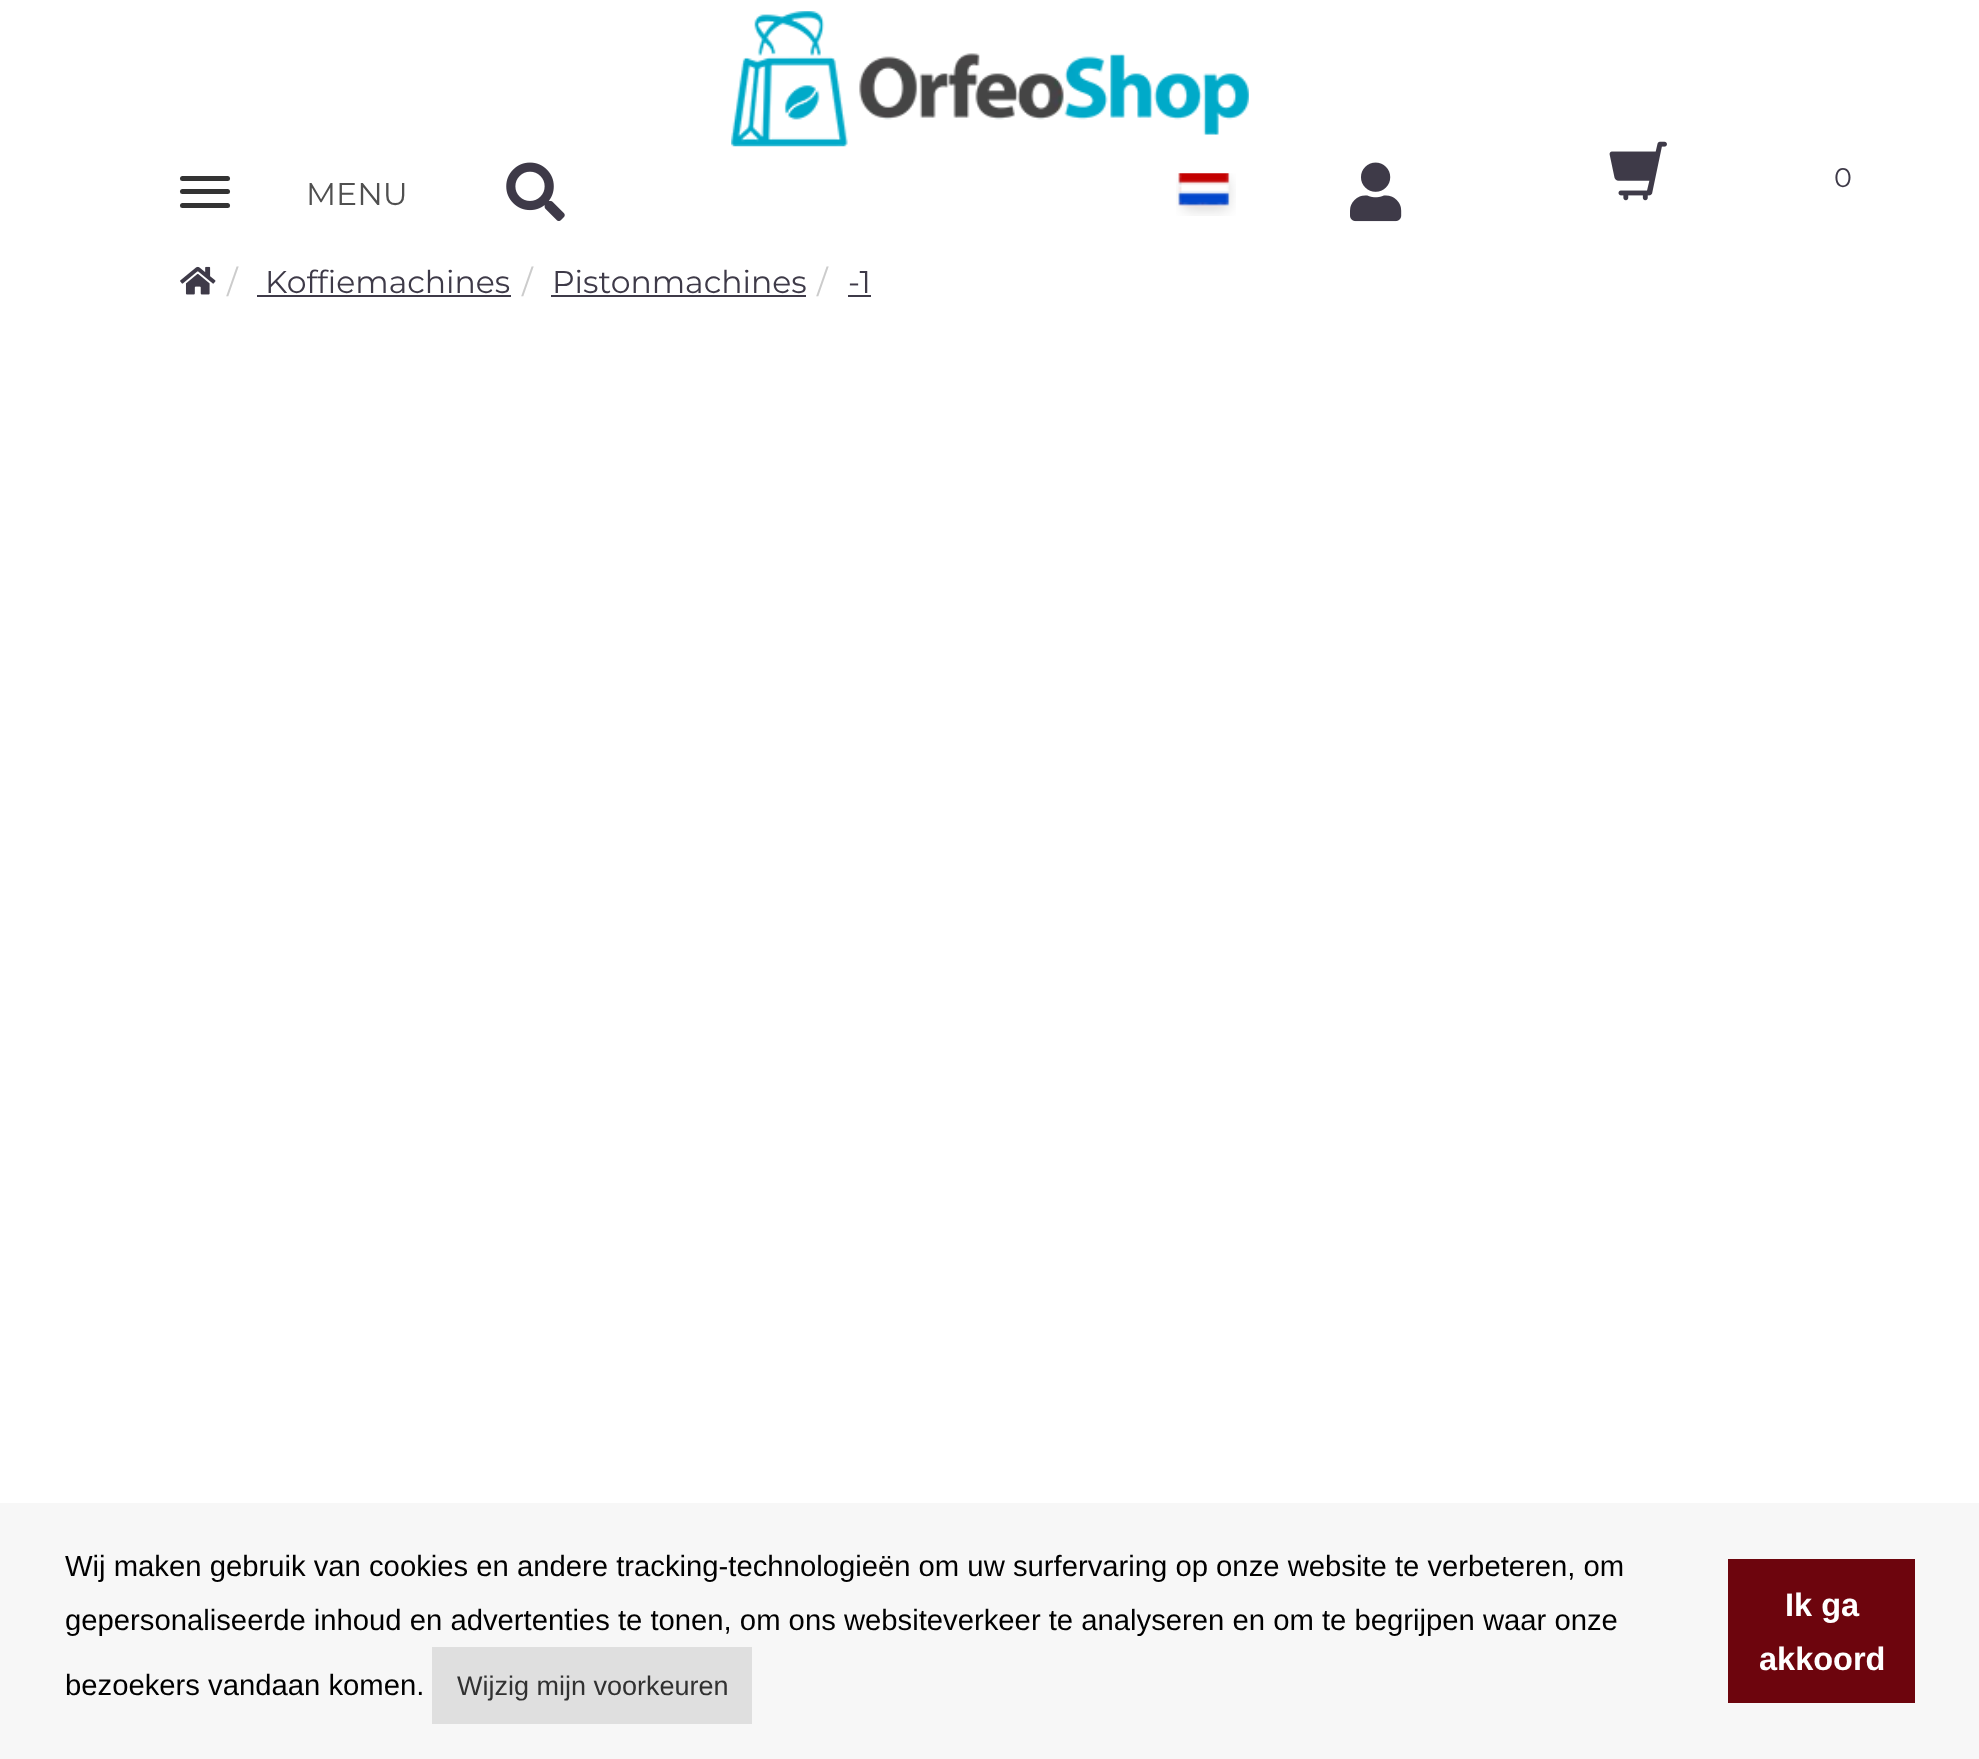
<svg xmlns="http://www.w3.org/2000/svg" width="1979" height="1759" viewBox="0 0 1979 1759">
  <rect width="100%" height="100%" fill="#ffffff"/>
  <image x="731" y="11" width="518" height="136" href="img1.png"/>
  <rect x="180" y="176" width="50" height="5" rx="2.5" fill="#333333"/>
  <rect x="180" y="189" width="50" height="5" rx="2.5" fill="#333333"/>
  <rect x="180" y="203" width="50" height="5" rx="2.5" fill="#333333"/>
  <text x="306" y="205" font-family="Montserrat" font-size="31.5" fill="#505050">MENU</text>
  <image x="506" y="162" width="59" height="59" href="img2.png"/>
  <image x="1176" y="173" width="60" height="43" href="img3.png"/>
  <image x="1350" y="162" width="52" height="60" href="img4.png"/>
  <image x="1609" y="141" width="58" height="60" href="img5.png"/>
  <text x="1834" y="187" font-family="Montserrat" font-size="27" fill="#3e3a48">0</text>
  <image x="180" y="266" width="36" height="29" href="img6.png"/>
  <text x="227" y="293" font-family="Montserrat" font-size="31.5" fill="#cccccc">/</text>
  <text x="265" y="293" font-family="Montserrat" font-size="31.5" fill="#3e3a48">Koffiemachines</text>
  <rect x="257" y="295" width="254" height="2" fill="#3e3a48"/>
  <text x="522" y="293" font-family="Montserrat" font-size="31.5" fill="#cccccc">/</text>
  <text x="552" y="293" font-family="Montserrat" font-size="31.5" fill="#3e3a48">Pistonmachines</text>
  <rect x="551" y="295" width="255" height="2" fill="#3e3a48"/>
  <text x="817" y="293" font-family="Montserrat" font-size="31.5" fill="#cccccc">/</text>
  <text x="848" y="293" font-family="Montserrat" font-size="31.5" fill="#3e3a48">-1</text>
  <rect x="848" y="295" width="23" height="2" fill="#3e3a48"/>
  <rect x="0" y="1503" width="1979" height="256" fill="#f7f7f7"/>
  <text x="65" y="1576" font-family="Liberation Sans" font-size="29.25" fill="#000000">Wij maken gebruik van cookies en andere tracking-technologieën om uw surfervaring op onze website te verbeteren, om</text>
  <text x="65" y="1630" font-family="Liberation Sans" font-size="29.25" fill="#000000">gepersonaliseerde inhoud en advertenties te tonen, om ons websiteverkeer te analyseren en om te begrijpen waar onze</text>
  <text x="65" y="1695" font-family="Liberation Sans" font-size="29.25" fill="#000000">bezoekers vandaan komen.</text>
  <rect x="432" y="1647" width="320" height="77" fill="#dfdfdf"/>
  <text x="457" y="1695" font-family="Liberation Sans" font-size="27" fill="#313131">Wijzig mijn voorkeuren</text>
  <rect x="1728" y="1559" width="187" height="144" fill="#6d050d"/>
  <text x="1785" y="1616" font-family="Liberation Sans" font-size="32.5" font-weight="bold" fill="#ffffff">Ik ga</text>
  <text x="1759" y="1670" font-family="Liberation Sans" font-size="32.5" font-weight="bold" fill="#ffffff">akkoord</text>
</svg>
